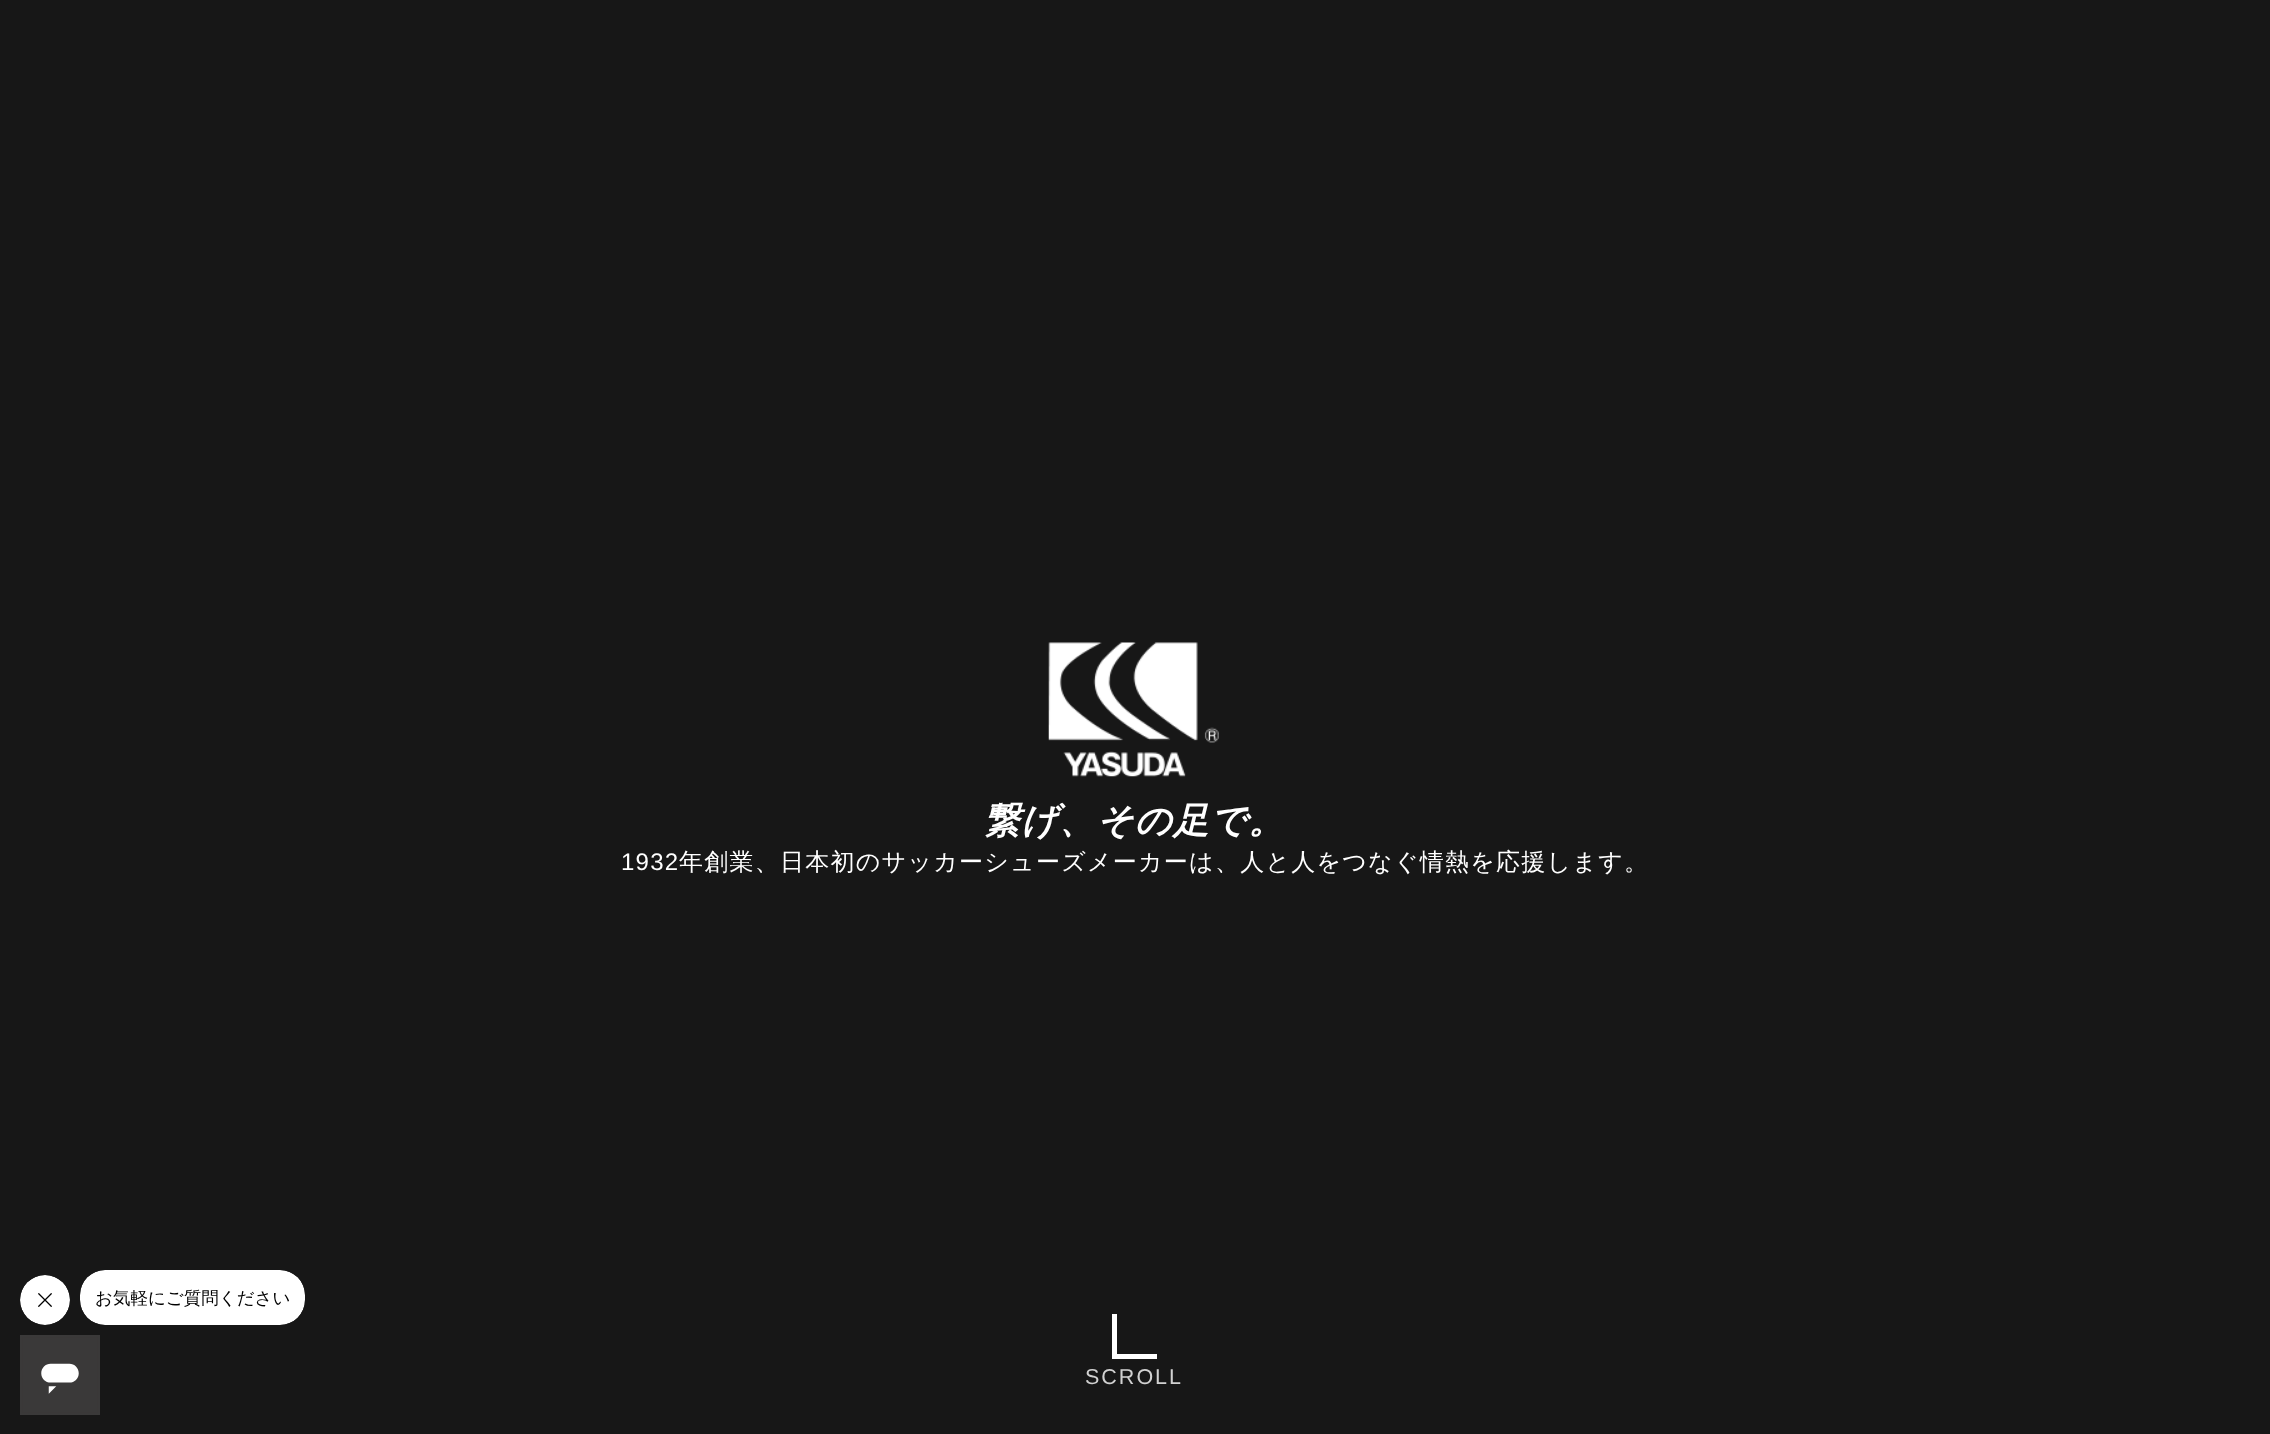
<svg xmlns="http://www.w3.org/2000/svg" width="2270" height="1434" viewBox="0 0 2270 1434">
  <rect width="100%" height="100%" fill="#171717"/>
  <image x="20" y="1275" width="50" height="50" href="img1.png"/>
  <image x="80" y="1270" width="225" height="55" href="img2.png"/>
  <image x="20" y="1335" width="80" height="80" href="img3.png"/>
  <image x="1048" y="642" width="171" height="135" href="img4.png"/>
  <text x="984" y="833" font-family="WenQuanYi Zen Hei" font-size="36" font-weight="bold" font-style="italic" letter-spacing="1.25" fill="#ffffff">繋げ、その足で。</text>
  <text x="621" y="870" font-family="Liberation Sans" font-size="24" letter-spacing="1.25" fill="#ffffff">1932</text>
  <text x="679" y="870" font-family="WenQuanYi Zen Hei" font-size="24" font-weight="500" letter-spacing="1.25" fill="#ffffff">年創業、日本初のサッカーシューズメーカーは、人と人をつなぐ情熱を応援します。</text>
  <rect x="1112" y="1354" width="45" height="5" fill="#ffffff"/>
  <rect x="1112" y="1314" width="5" height="45" fill="#ffffff"/>
  <text x="1085" y="1384" font-family="Liberation Sans" font-size="21.5" letter-spacing="2" fill="#d1d1d1">SCROLL</text>
</svg>
